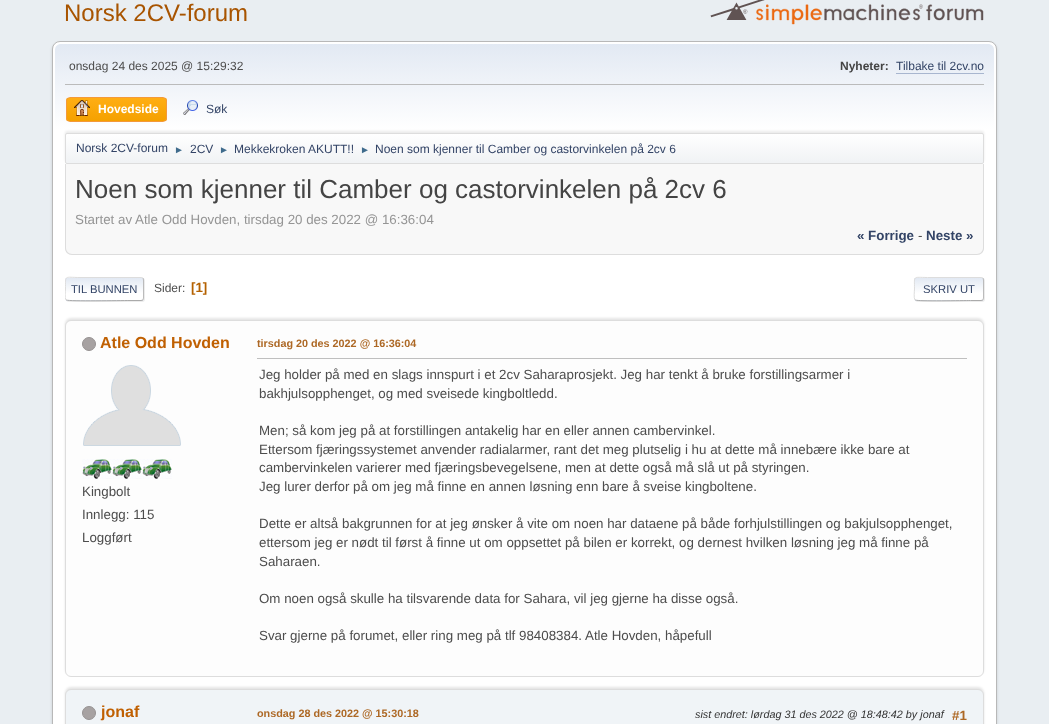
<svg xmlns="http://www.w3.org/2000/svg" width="1049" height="724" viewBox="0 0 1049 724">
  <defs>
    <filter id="blur1" x="-50%" y="-200%" width="200%" height="500%"><feGaussianBlur stdDeviation="1.5"/></filter>
    <linearGradient id="g1" gradientUnits="userSpaceOnUse" x1="525" y1="44" x2="525" y2="166"><stop offset="0" stop-color="#e2e9f3"/><stop offset="0.7" stop-color="#ffffff"/></linearGradient>
    <clipPath id="clip1"><rect x="66" y="97" width="101" height="25" rx="4"/></clipPath>
    <linearGradient id="g2" gradientUnits="userSpaceOnUse" x1="117" y1="98" x2="117" y2="121"><stop offset="0" stop-color="#ffae14"/><stop offset="1" stop-color="#f5a100"/></linearGradient>
    <filter id="blur2" x="-50%" y="-200%" width="200%" height="500%"><feGaussianBlur stdDeviation="1"/></filter>
    <clipPath id="clip2"><rect x="65" y="133" width="919" height="31" rx="2"/></clipPath>
    <linearGradient id="g3" gradientUnits="userSpaceOnUse" x1="525" y1="134" x2="525" y2="163"><stop offset="0" stop-color="#ffffff"/><stop offset="0.95" stop-color="#f1f3f5"/></linearGradient>
    <filter id="blur3" x="-50%" y="-200%" width="200%" height="500%"><feGaussianBlur stdDeviation="0.5"/></filter>
    <clipPath id="clip3"><rect x="65" y="277" width="79" height="24" rx="3"/></clipPath>
    <linearGradient id="g4" gradientUnits="userSpaceOnUse" x1="105" y1="278" x2="105" y2="300"><stop offset="0" stop-color="#e2e9f3"/><stop offset="0.7" stop-color="#ffffff"/></linearGradient>
    <linearGradient id="g5" gradientUnits="userSpaceOnUse" x1="105" y1="300" x2="105" y2="322"><stop offset="0" stop-color="#e2e9f3"/><stop offset="0.7" stop-color="#ffffff"/></linearGradient>
    <clipPath id="clip4"><rect x="65" y="270" width="919" height="38"/></clipPath>
    <clipPath id="clip5"><path d="M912 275H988V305H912ZM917 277H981C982.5 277 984 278.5 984 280V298C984 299.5 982.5 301 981 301H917C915.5 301 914 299.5 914 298V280C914 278.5 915.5 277 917 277Z" clip-rule="evenodd"/></clipPath>
    <clipPath id="clip6"><rect x="914" y="277" width="70" height="24" rx="3"/></clipPath>
    <linearGradient id="g6" gradientUnits="userSpaceOnUse" x1="949" y1="278" x2="949" y2="300"><stop offset="0" stop-color="#e2e9f3"/><stop offset="0.7" stop-color="#ffffff"/></linearGradient>
    <linearGradient id="g7" gradientUnits="userSpaceOnUse" x1="949" y1="300" x2="949" y2="322"><stop offset="0" stop-color="#e2e9f3"/><stop offset="0.7" stop-color="#ffffff"/></linearGradient>
  </defs>
  <rect width="100%" height="100%" fill="#e9eef2"/>
  <text x="64" y="21" font-family="Liberation Sans" font-size="24" fill="#a85400">Norsk 2CV-forum</text>
  <image x="710" y="0" width="274" height="25" href="img1.png"/>
  <rect x="52" y="43" width="945" height="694" rx="8" fill="#000000" fill-opacity="0.14" filter="url(#blur1)"/>
  <rect x="52.5" y="41.5" width="944" height="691" rx="7.5" fill="#ffffff" stroke="#b8b8b8"/>
  <path d="M61 44H988C991.5 44 994 46.5 994 50V166H55V50C55 46.5 57.5 44 61 44Z" fill="url(#g1)"/>
  <rect x="65" y="84" width="919" height="1" fill="#bbbbbb"/>
  <text x="69" y="70" font-family="Liberation Sans" font-size="12" fill="#4d4d4d">onsdag 24 des 2025 @ 15:29:32</text>
  <text x="840" y="70" font-family="Liberation Sans" font-size="12" font-weight="bold" fill="#444444">Nyheter:</text>
  <text x="896" y="70" font-family="Liberation Sans" font-size="12" fill="#334466">Tilbake til 2cv.no</text>
  <rect x="896" y="73" width="88" height="1" fill="#a8b6cf"/>
  <g clip-path="url(#clip1)">
    <rect x="66" y="98" width="101" height="23" fill="url(#g2)"/>
  </g>
  <rect x="66.5" y="97.5" width="100" height="24" rx="3.5" fill="none" stroke="#f49a3a"/>
  <image x="74" y="100" width="16" height="16" href="img2.png"/>
  <text x="98" y="113" font-family="Liberation Sans" font-size="12" font-weight="bold" fill="#ffffff">Hovedside</text>
  <image x="183" y="100" width="15" height="15" href="img3.png"/>
  <text x="206" y="113" font-family="Liberation Sans" font-size="12" fill="#334466">Søk</text>
  <rect x="65" y="131" width="919" height="31" rx="2" fill="#000000" fill-opacity="0.08" filter="url(#blur2)"/>
  <g clip-path="url(#clip2)">
    <rect x="65" y="134" width="919" height="29" fill="url(#g3)"/>
  </g>
  <rect x="65.5" y="133.5" width="918" height="30" rx="1.5" fill="none" stroke="#dddddd"/>
  <text x="76" y="152" font-family="Liberation Sans" font-size="12" fill="#334466">Norsk 2CV-forum</text>
  <text x="174" y="153" font-family="Liberation Sans" font-size="10" fill="#3f6b8c">►</text>
  <text x="190" y="153" font-family="Liberation Sans" font-size="12" fill="#334466">2CV</text>
  <text x="219" y="153" font-family="Liberation Sans" font-size="10" fill="#3f6b8c">►</text>
  <text x="234" y="153" font-family="Liberation Sans" font-size="12" fill="#334466">Mekkekroken AKUTT!!</text>
  <text x="360" y="153" font-family="Liberation Sans" font-size="10" fill="#3f6b8c">►</text>
  <text x="375" y="153" font-family="Liberation Sans" font-size="12" fill="#334466">Noen som kjenner til Camber og castorvinkelen på 2cv 6</text>
  <path d="M65 164H984V248C984 252 981 255 977 255H72C68 255 65 252 65 248Z" fill="#f8f8f8"/>
  <path d="M65 164H984V248C984 252 981 255 977 255H72C68 255 65 252 65 248ZM66 164H983V248C983 251 980 254 977 254H72C69 254 66 251 66 248Z" fill="#dddddd" fill-rule="evenodd"/>
  <text x="75" y="198" font-family="Liberation Sans" font-size="26" fill="#444444">Noen som kjenner til Camber og castorvinkelen på 2cv 6</text>
  <text x="75" y="224" font-family="Liberation Sans" font-size="13.33" fill="#959595">Startet av Atle Odd Hovden, tirsdag 20 des 2022 @ 16:36:04</text>
  <text x="857" y="240" font-family="Liberation Sans" font-size="13.33" font-weight="bold" fill="#334466">« Forrige</text>
  <text x="918" y="240" font-family="Liberation Sans" font-size="13.33" fill="#4d4d4d">-</text>
  <text x="926" y="240" font-family="Liberation Sans" font-size="13.33" font-weight="bold" fill="#334466">Neste »</text>
  <rect x="66" y="278" width="79" height="24" rx="3" fill="#dddddd" fill-opacity="0.57" filter="url(#blur3)"/>
  <g clip-path="url(#clip3)">
    <rect x="65" y="278" width="79" height="22" fill="url(#g4)"/>
    <rect x="65" y="300" width="79" height="1" fill="url(#g5)"/>
  </g>
  <path d="M143 278C143 278.5 143.5 279.5 143.5 280V298C143.5 298.5 143 299.5 143 300" fill="none" stroke="#bbbbbb"/>
  <path d="M143 300L141 300.5H129C122 300.5 68.5 301.5 66.5 300H66" fill="none" stroke="#aaaaaa"/>
  <g clip-path="url(#clip4)">
    <path d="M66 300C64.5 298 65.5 291 65.5 289C65.5 274.5 64 277.5 80 277.5H141L143 278" fill="none" stroke="#dddddd"/>
  </g>
  <text x="71" y="293" font-family="Liberation Sans" font-size="11.25" fill="#334466">TIL BUNNEN</text>
  <text x="154" y="292" font-family="Liberation Sans" font-size="12" fill="#4d4d4d">Sider:</text>
  <text x="191" y="292" font-family="Liberation Sans" font-size="13.33" font-weight="bold" fill="#b46100">[1]</text>
  <g clip-path="url(#clip5)">
    <rect x="915" y="278" width="70" height="24" rx="3" fill="#dddddd" fill-opacity="0.57" filter="url(#blur3)"/>
  </g>
  <g clip-path="url(#clip6)">
    <rect x="914" y="278" width="70" height="22" fill="url(#g6)"/>
    <rect x="914" y="300" width="70" height="1" fill="url(#g7)"/>
  </g>
  <path d="M983 278C983 278.5 983.5 279.5 983.5 280V298C983.5 298.5 983 299.5 983 300" fill="none" stroke="#bbbbbb"/>
  <path d="M983 300L981 300.5H970.5C964 300.5 917.5 301.5 915.5 300H915" fill="none" stroke="#aaaaaa"/>
  <path d="M915 300C913.5 298 914.5 291 914.5 289C914.5 275 912.5 277.5 927.5 277.5H981L983 278" fill="none" stroke="#dddddd"/>
  <text x="923" y="293" font-family="Liberation Sans" font-size="11.25" fill="#334466">SKRIV UT</text>
  <rect x="65" y="318" width="919" height="357" rx="6" fill="#000000" fill-opacity="0.1" filter="url(#blur2)"/>
  <rect x="65.5" y="320.5" width="918" height="356" rx="5.5" fill="#fdfdfd" stroke="#dddddd"/>
  <circle cx="89" cy="344" r="6.5" fill="#a7a2a2" stroke="#969292"/>
  <text x="100" y="348" font-family="Liberation Sans" font-size="16" font-weight="bold" fill="#c06002">Atle Odd Hovden</text>
  <image x="83" y="365" width="98" height="81" href="img4.png"/>
  <image x="82" y="459" width="30" height="20" href="img5.png"/>
  <image x="112" y="459" width="30" height="20" href="img5.png"/>
  <image x="142" y="459" width="30" height="20" href="img5.png"/>
  <text x="82" y="496" font-family="Liberation Sans" font-size="13.33" fill="#4d4d4d">Kingbolt</text>
  <text x="82" y="519" font-family="Liberation Sans" font-size="13.33" fill="#4d4d4d">Innlegg: 115</text>
  <text x="82" y="542" font-family="Liberation Sans" font-size="13.33" fill="#4d4d4d">Loggført</text>
  <text x="257" y="347" font-family="Liberation Sans" font-size="10.8" font-weight="bold" fill="#ad6825">tirsdag 20 des 2022 @ 16:36:04</text>
  <rect x="257" y="358" width="710" height="1" fill="#bfbfbf"/>
  <text x="259" y="379" font-family="Liberation Sans" font-size="13.33" fill="#4d4d4d">Jeg holder på med en slags innspurt i et 2cv Saharaprosjekt. Jeg har tenkt å bruke forstillingsarmer i</text>
  <text x="259" y="398" font-family="Liberation Sans" font-size="13.33" fill="#4d4d4d">bakhjulsopphenget, og med sveisede kingboltledd.</text>
  <text x="259" y="435" font-family="Liberation Sans" font-size="13.33" fill="#4d4d4d">Men; så kom jeg på at forstillingen antakelig har en eller annen cambervinkel.</text>
  <text x="259" y="454" font-family="Liberation Sans" font-size="13.33" fill="#4d4d4d">Ettersom fjæringssystemet anvender radialarmer, rant det meg plutselig i hu at dette må innebære ikke bare at</text>
  <text x="259" y="472" font-family="Liberation Sans" font-size="13.33" fill="#4d4d4d">cambervinkelen varierer med fjæringsbevegelsene, men at dette også må slå ut på styringen.</text>
  <text x="259" y="491" font-family="Liberation Sans" font-size="13.33" fill="#4d4d4d">Jeg lurer derfor på om jeg må finne en annen løsning enn bare å sveise kingboltene.</text>
  <text x="259" y="528" font-family="Liberation Sans" font-size="13.33" fill="#4d4d4d">Dette er altså bakgrunnen for at jeg ønsker å vite om noen har dataene på både forhjulstillingen og bakjulsopphenget,</text>
  <text x="259" y="547" font-family="Liberation Sans" font-size="13.33" fill="#4d4d4d">ettersom jeg er nødt til først å finne ut om oppsettet på bilen er korrekt, og dernest hvilken løsning jeg må finne på</text>
  <text x="259" y="566" font-family="Liberation Sans" font-size="13.33" fill="#4d4d4d">Saharaen.</text>
  <text x="259" y="603" font-family="Liberation Sans" font-size="13.33" fill="#4d4d4d">Om noen også skulle ha tilsvarende data for Sahara, vil jeg gjerne ha disse også.</text>
  <text x="259" y="640" font-family="Liberation Sans" font-size="13.33" fill="#4d4d4d">Svar gjerne på forumet, eller ring meg på tlf 98408384. Atle Hovden, håpefull</text>
  <rect x="65" y="687" width="919" height="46" rx="6" fill="#000000" fill-opacity="0.1" filter="url(#blur2)"/>
  <rect x="65.5" y="689.5" width="918" height="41" rx="5.5" fill="#f0f4f7" stroke="#dddddd"/>
  <circle cx="89" cy="713" r="6.5" fill="#a7a2a2" stroke="#969292"/>
  <text x="101" y="717" font-family="Liberation Sans" font-size="16" font-weight="bold" fill="#c06002">jonaf</text>
  <text x="257" y="717" font-family="Liberation Sans" font-size="10.8" font-weight="bold" fill="#ad6825">onsdag 28 des 2022 @ 15:30:18</text>
  <text x="695" y="718" font-family="Liberation Sans" font-size="10.8" font-style="italic" fill="#333333">sist endret: lørdag 31 des 2022 @ 18:48:42 by jonaf</text>
  <text x="952" y="720" font-family="Liberation Sans" font-size="13.33" font-weight="bold" fill="#ad6825">#1</text>
</svg>
